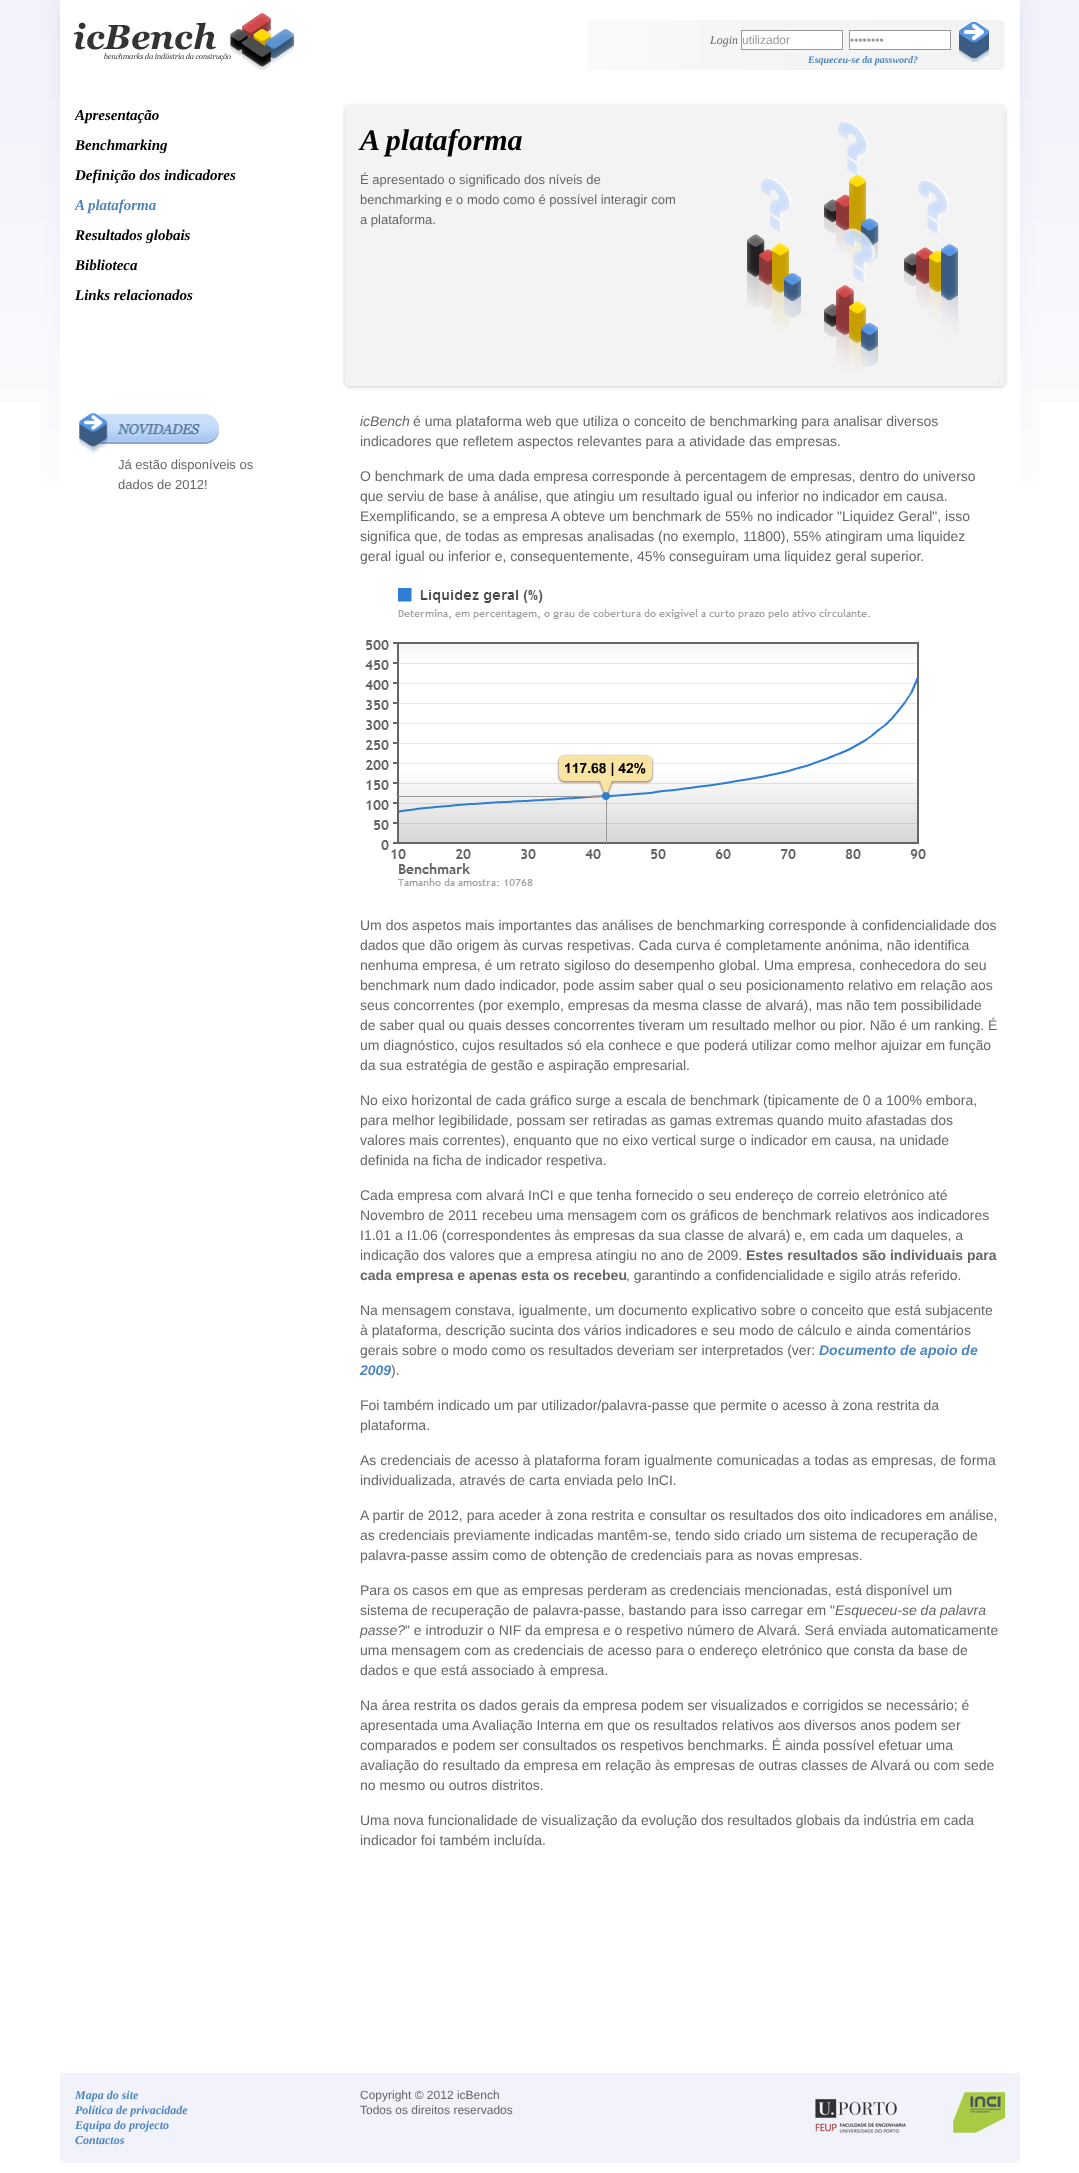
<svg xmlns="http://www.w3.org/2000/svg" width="1079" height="2173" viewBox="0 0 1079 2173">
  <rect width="100%" height="100%" fill="#ffffff"/>
  <image x="0" y="0" width="1079" height="402" href="img1.png"/>
  <image x="40" y="0" width="1000" height="482" href="img2.png"/>
  <image x="73" y="13" width="221" height="58" href="img3.png"/>
  <image x="588" y="20" width="417" height="50" href="img4.png"/>
  <text x="710" y="44" font-family="Liberation Serif" font-size="12" font-style="italic" fill="#666666">Login</text>
  <rect x="741.5" y="30.5" width="101" height="19" fill="#ffffff" stroke="#999999"/>
  <text x="742" y="44" font-family="Liberation Sans" font-size="12" fill="#999999">utilizador</text>
  <rect x="849.5" y="30.5" width="101" height="19" fill="#ffffff" stroke="#999999"/>
  <text x="850" y="44" font-family="Liberation Sans" font-size="12" fill="#999999">••••••••</text>
  <image x="959" y="22" width="30" height="40" href="img5.png"/>
  <text x="808" y="63" font-family="Liberation Serif" font-size="10" font-weight="bold" font-style="italic" fill="#4d86bf">Esqueceu-se da password?</text>
  <text x="75" y="120" font-family="Liberation Serif" font-size="15" font-weight="bold" font-style="italic" fill="#000000">Apresentação</text>
  <text x="75" y="150" font-family="Liberation Serif" font-size="15" font-weight="bold" font-style="italic" fill="#000000">Benchmarking</text>
  <text x="75" y="180" font-family="Liberation Serif" font-size="15" font-weight="bold" font-style="italic" fill="#000000">Definição dos indicadores</text>
  <text x="75" y="210" font-family="Liberation Serif" font-size="15" font-weight="bold" font-style="italic" fill="#4d86bf">A plataforma</text>
  <text x="75" y="240" font-family="Liberation Serif" font-size="15" font-weight="bold" font-style="italic" fill="#000000">Resultados globais</text>
  <text x="75" y="270" font-family="Liberation Serif" font-size="15" font-weight="bold" font-style="italic" fill="#000000">Biblioteca</text>
  <text x="75" y="300" font-family="Liberation Serif" font-size="15" font-weight="bold" font-style="italic" fill="#000000">Links relacionados</text>
  <image x="79" y="413" width="140" height="41" href="img6.png"/>
  <text x="118" y="469" font-family="Liberation Sans" font-size="13" fill="#666666">Já estão disponíveis os</text>
  <text x="118" y="489" font-family="Liberation Sans" font-size="13" fill="#666666">dados de 2012!</text>
  <image x="342" y="103" width="666" height="17" href="img7.png"/>
  <image x="342" y="120" width="666" height="256" href="img8.png"/>
  <text x="360" y="150" font-family="Liberation Serif" font-size="30" font-weight="bold" font-style="italic" fill="#000000">A plataforma</text>
  <text x="360" y="184" font-family="Liberation Sans" font-size="13" fill="#666666">É apresentado o significado dos níveis de</text>
  <text x="360" y="204" font-family="Liberation Sans" font-size="13" fill="#666666">benchmarking e o modo como é possível interagir com</text>
  <text x="360" y="224" font-family="Liberation Sans" font-size="13" fill="#666666">a plataforma.</text>
  <image x="342" y="376" width="666" height="14" href="img10.png"/>
  <image x="700" y="105" width="300" height="280" href="img9.png"/>
  <text x="360" y="426" font-family="Liberation Sans" font-size="14" font-style="italic" fill="#666666">icBench</text>
  <text x="413" y="426" font-family="Liberation Sans" font-size="14" fill="#666666">é uma plataforma web que utiliza o conceito de benchmarking para analisar diversos</text>
  <text x="360" y="446" font-family="Liberation Sans" font-size="14" fill="#666666">indicadores que refletem aspectos relevantes para a atividade das empresas.</text>
  <text x="360" y="481" font-family="Liberation Sans" font-size="14" fill="#666666">O benchmark de uma dada empresa corresponde à percentagem de empresas, dentro do universo</text>
  <text x="360" y="501" font-family="Liberation Sans" font-size="14" fill="#666666">que serviu de base à análise, que atingiu um resultado igual ou inferior no indicador em causa.</text>
  <text x="360" y="521" font-family="Liberation Sans" font-size="14" fill="#666666">Exemplificando, se a empresa A obteve um benchmark de 55% no indicador "Liquidez Geral", isso</text>
  <text x="360" y="541" font-family="Liberation Sans" font-size="14" fill="#666666">significa que, de todas as empresas analisadas (no exemplo, 11800), 55% atingiram uma liquidez</text>
  <text x="360" y="561" font-family="Liberation Sans" font-size="14" fill="#666666">geral igual ou inferior e, consequentemente, 45% conseguiram uma liquidez geral superior.</text>
  <image x="365" y="588" width="561" height="298" href="img11.png"/>
  <text x="360" y="930" font-family="Liberation Sans" font-size="14" fill="#666666">Um dos aspetos mais importantes das análises de benchmarking corresponde à confidencialidade dos</text>
  <text x="360" y="950" font-family="Liberation Sans" font-size="14" fill="#666666">dados que dão origem às curvas respetivas. Cada curva é completamente anónima, não identifica</text>
  <text x="360" y="970" font-family="Liberation Sans" font-size="14" fill="#666666">nenhuma empresa, é um retrato sigiloso do desempenho global. Uma empresa, conhecedora do seu</text>
  <text x="360" y="990" font-family="Liberation Sans" font-size="14" fill="#666666">benchmark num dado indicador, pode assim saber qual o seu posicionamento relativo em relação aos</text>
  <text x="360" y="1010" font-family="Liberation Sans" font-size="14" fill="#666666">seus concorrentes (por exemplo, empresas da mesma classe de alvará), mas não tem possibilidade</text>
  <text x="360" y="1030" font-family="Liberation Sans" font-size="14" fill="#666666">de saber qual ou quais desses concorrentes tiveram um resultado melhor ou pior. Não é um ranking. É</text>
  <text x="360" y="1050" font-family="Liberation Sans" font-size="14" fill="#666666">um diagnóstico, cujos resultados só ela conhece e que poderá utilizar como melhor ajuizar em função</text>
  <text x="360" y="1070" font-family="Liberation Sans" font-size="14" fill="#666666">da sua estratégia de gestão e aspiração empresarial.</text>
  <text x="360" y="1105" font-family="Liberation Sans" font-size="14" fill="#666666">No eixo horizontal de cada gráfico surge a escala de benchmark (tipicamente de 0 a 100% embora,</text>
  <text x="360" y="1125" font-family="Liberation Sans" font-size="14" fill="#666666">para melhor legibilidade, possam ser retiradas as gamas extremas quando muito afastadas dos</text>
  <text x="360" y="1145" font-family="Liberation Sans" font-size="14" fill="#666666">valores mais correntes), enquanto que no eixo vertical surge o indicador em causa, na unidade</text>
  <text x="360" y="1165" font-family="Liberation Sans" font-size="14" fill="#666666">definida na ficha de indicador respetiva.</text>
  <text x="360" y="1200" font-family="Liberation Sans" font-size="14" fill="#666666">Cada empresa com alvará InCI e que tenha fornecido o seu endereço de correio eletrónico até</text>
  <text x="360" y="1220" font-family="Liberation Sans" font-size="14" fill="#666666">Novembro de 2011 recebeu uma mensagem com os gráficos de benchmark relativos aos indicadores</text>
  <text x="360" y="1240" font-family="Liberation Sans" font-size="14" fill="#666666">I1.01 a I1.06 (correspondentes às empresas da sua classe de alvará) e, em cada um daqueles, a</text>
  <text x="360" y="1260" font-family="Liberation Sans" font-size="14" fill="#666666">indicação dos valores que a empresa atingiu no ano de 2009.</text>
  <text x="746" y="1260" font-family="Liberation Sans" font-size="14" font-weight="bold" fill="#666666">Estes resultados são individuais para</text>
  <text x="360" y="1280" font-family="Liberation Sans" font-size="14" font-weight="bold" fill="#666666">cada empresa e apenas esta os recebeu</text>
  <text x="626" y="1280" font-family="Liberation Sans" font-size="14" fill="#666666">, garantindo a confidencialidade e sigilo atrás referido.</text>
  <text x="360" y="1315" font-family="Liberation Sans" font-size="14" fill="#666666">Na mensagem constava, igualmente, um documento explicativo sobre o conceito que está subjacente</text>
  <text x="360" y="1335" font-family="Liberation Sans" font-size="14" fill="#666666">à plataforma, descrição sucinta dos vários indicadores e seu modo de cálculo e ainda comentários</text>
  <text x="360" y="1355" font-family="Liberation Sans" font-size="14" fill="#666666">gerais sobre o modo como os resultados deveriam ser interpretados (ver:</text>
  <text x="819" y="1355" font-family="Liberation Sans" font-size="14" font-weight="bold" font-style="italic" fill="#4d86bf">Documento de apoio de</text>
  <text x="360" y="1375" font-family="Liberation Sans" font-size="14" font-weight="bold" font-style="italic" fill="#4d86bf">2009</text>
  <text x="391" y="1375" font-family="Liberation Sans" font-size="14" fill="#666666">).</text>
  <text x="360" y="1410" font-family="Liberation Sans" font-size="14" fill="#666666">Foi também indicado um par utilizador/palavra-passe que permite o acesso à zona restrita da</text>
  <text x="360" y="1430" font-family="Liberation Sans" font-size="14" fill="#666666">plataforma.</text>
  <text x="360" y="1465" font-family="Liberation Sans" font-size="14" fill="#666666">As credenciais de acesso à plataforma foram igualmente comunicadas a todas as empresas, de forma</text>
  <text x="360" y="1485" font-family="Liberation Sans" font-size="14" fill="#666666">individualizada, através de carta enviada pelo InCI.</text>
  <text x="360" y="1520" font-family="Liberation Sans" font-size="14" fill="#666666">A partir de 2012, para aceder à zona restrita e consultar os resultados dos oito indicadores em análise,</text>
  <text x="360" y="1540" font-family="Liberation Sans" font-size="14" fill="#666666">as credenciais previamente indicadas mantêm-se, tendo sido criado um sistema de recuperação de</text>
  <text x="360" y="1560" font-family="Liberation Sans" font-size="14" fill="#666666">palavra-passe assim como de obtenção de credenciais para as novas empresas.</text>
  <text x="360" y="1595" font-family="Liberation Sans" font-size="14" fill="#666666">Para os casos em que as empresas perderam as credenciais mencionadas, está disponível um</text>
  <text x="360" y="1615" font-family="Liberation Sans" font-size="14" fill="#666666">sistema de recuperação de palavra-passe, bastando para isso carregar em "</text>
  <text x="835" y="1615" font-family="Liberation Sans" font-size="14" font-style="italic" fill="#666666">Esqueceu-se da palavra</text>
  <text x="360" y="1635" font-family="Liberation Sans" font-size="14" font-style="italic" fill="#666666">passe?</text>
  <text x="405" y="1635" font-family="Liberation Sans" font-size="14" fill="#666666">" e introduzir o NIF da empresa e o respetivo número de Alvará. Será enviada automaticamente</text>
  <text x="360" y="1655" font-family="Liberation Sans" font-size="14" fill="#666666">uma mensagem com as credenciais de acesso para o endereço eletrónico que consta da base de</text>
  <text x="360" y="1675" font-family="Liberation Sans" font-size="14" fill="#666666">dados e que está associado à empresa.</text>
  <text x="360" y="1710" font-family="Liberation Sans" font-size="14" fill="#666666">Na área restrita os dados gerais da empresa podem ser visualizados e corrigidos se necessário; é</text>
  <text x="360" y="1730" font-family="Liberation Sans" font-size="14" fill="#666666">apresentada uma Avaliação Interna em que os resultados relativos aos diversos anos podem ser</text>
  <text x="360" y="1750" font-family="Liberation Sans" font-size="14" fill="#666666">comparados e podem ser consultados os respetivos benchmarks. É ainda possível efetuar uma</text>
  <text x="360" y="1770" font-family="Liberation Sans" font-size="14" fill="#666666">avaliação do resultado da empresa em relação às empresas de outras classes de Alvará ou com sede</text>
  <text x="360" y="1790" font-family="Liberation Sans" font-size="14" fill="#666666">no mesmo ou outros distritos.</text>
  <text x="360" y="1825" font-family="Liberation Sans" font-size="14" fill="#666666">Uma nova funcionalidade de visualização da evolução dos resultados globais da indústria em cada</text>
  <text x="360" y="1845" font-family="Liberation Sans" font-size="14" fill="#666666">indicador foi também incluída.</text>
  <image x="60" y="2073" width="960" height="90" href="img12.png"/>
  <text x="75" y="2099" font-family="Liberation Serif" font-size="12" font-weight="bold" font-style="italic" fill="#4d86bf">Mapa do site</text>
  <text x="75" y="2114" font-family="Liberation Serif" font-size="12" font-weight="bold" font-style="italic" fill="#4d86bf">Política de privacidade</text>
  <text x="75" y="2129" font-family="Liberation Serif" font-size="12" font-weight="bold" font-style="italic" fill="#4d86bf">Equipa do projecto</text>
  <text x="75" y="2144" font-family="Liberation Serif" font-size="12" font-weight="bold" font-style="italic" fill="#4d86bf">Contactos</text>
  <text x="360" y="2099" font-family="Liberation Sans" font-size="12" fill="#666666">Copyright © 2012 icBench</text>
  <text x="360" y="2114" font-family="Liberation Sans" font-size="12" fill="#666666">Todos os direitos reservados</text>
  <image x="815" y="2099" width="91" height="34" href="img13.png"/>
  <image x="953" y="2092" width="52" height="41" href="img14.png"/>
</svg>
